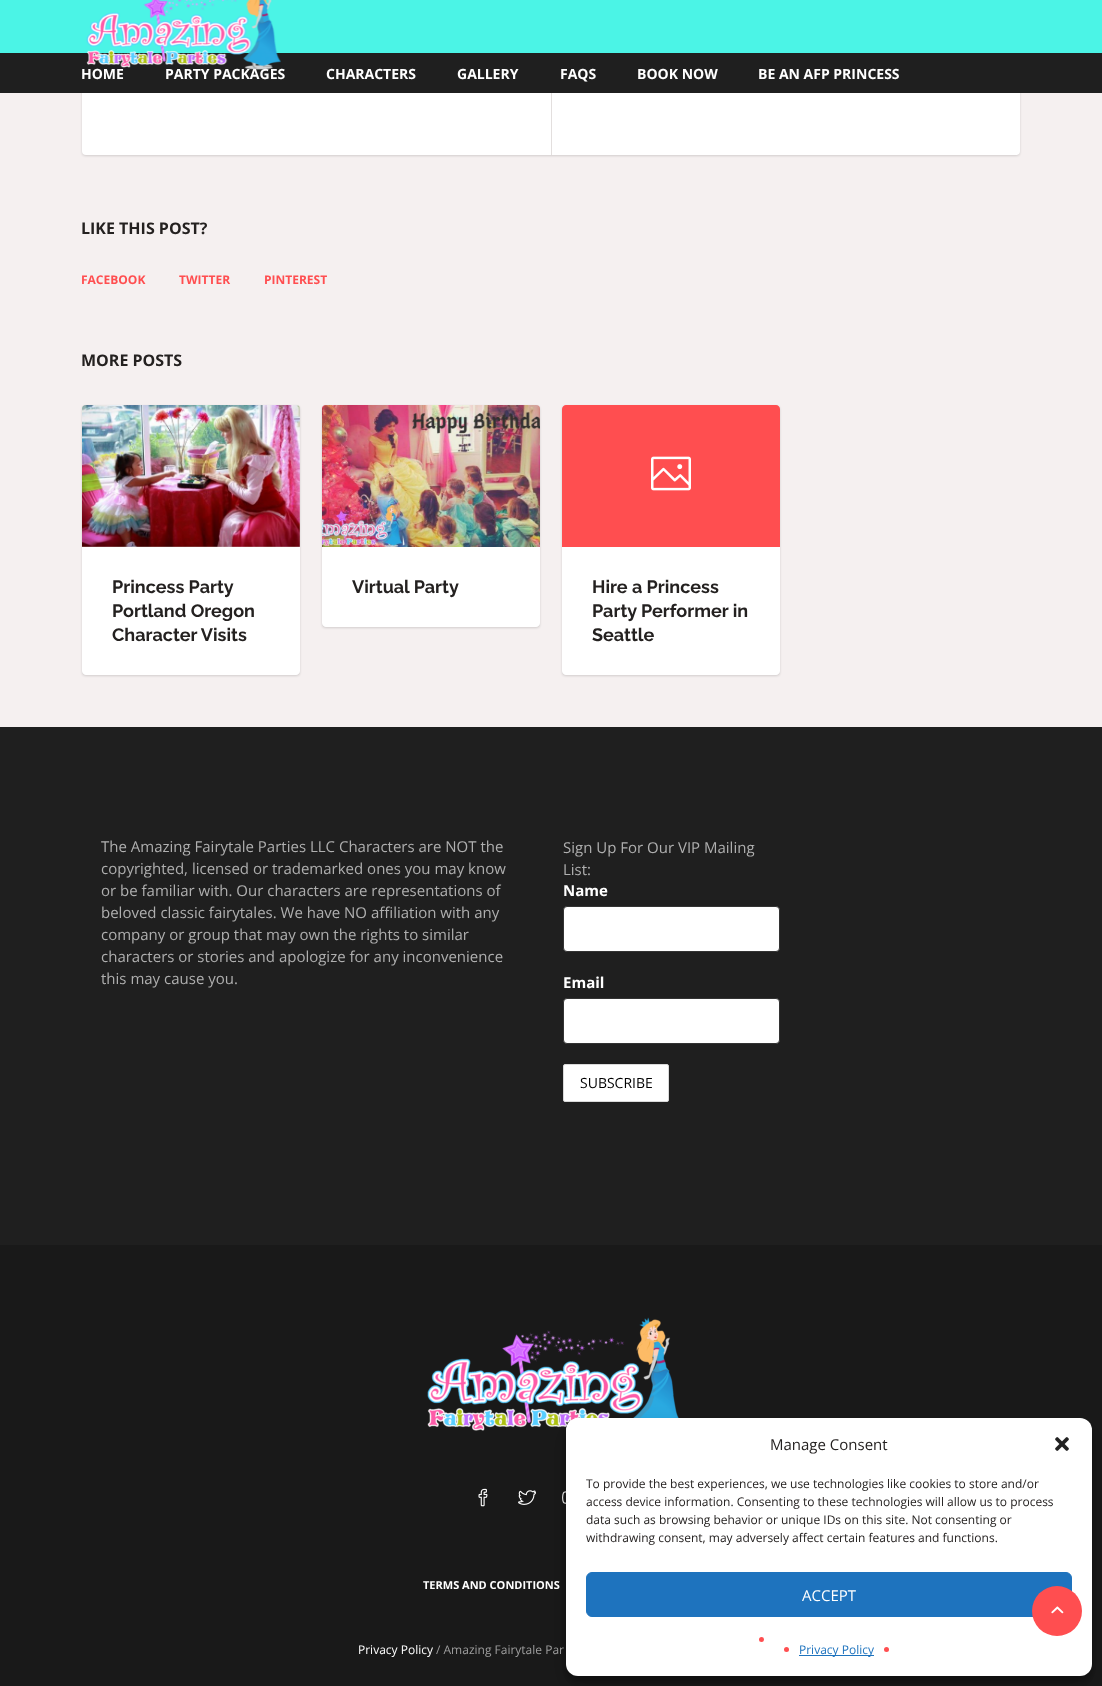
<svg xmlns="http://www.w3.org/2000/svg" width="1102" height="1686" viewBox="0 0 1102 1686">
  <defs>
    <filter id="blur1" x="-50%" y="-200%" width="200%" height="500%"><feGaussianBlur stdDeviation="1"/></filter>
    <filter id="blur2" x="-50%" y="-200%" width="200%" height="500%"><feGaussianBlur stdDeviation="3"/></filter>
    <filter id="blur3" x="-50%" y="-200%" width="200%" height="500%"><feGaussianBlur stdDeviation="10"/></filter>
  </defs>
  <rect width="100%" height="100%" fill="#f5f0f0"/>
  <rect x="82" y="-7" width="938" height="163" rx="4" fill="#000000" fill-opacity="0.15" filter="url(#blur1)"/>
  <rect x="82" y="-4" width="938" height="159" rx="4" fill="#ffffff"/>
  <rect x="0" y="0" width="1102" height="53" fill="#4bf4e6"/>
  <rect x="0" y="53" width="1102" height="40" fill="#1f1f1f"/>
  <image x="86" y="0" width="195" height="70" href="img1.png"/>
  <text x="81" y="79" font-family="Open Sans" font-size="14" font-weight="bold" fill="#ffffff">HOME</text>
  <text x="165" y="79" font-family="Open Sans" font-size="14" font-weight="bold" fill="#ffffff">PARTY PACKAGES</text>
  <text x="326" y="79" font-family="Open Sans" font-size="14" font-weight="bold" fill="#ffffff">CHARACTERS</text>
  <text x="457" y="79" font-family="Open Sans" font-size="14" font-weight="bold" fill="#ffffff">GALLERY</text>
  <text x="560" y="79" font-family="Open Sans" font-size="14" font-weight="bold" fill="#ffffff">FAQS</text>
  <text x="637" y="79" font-family="Open Sans" font-size="14" font-weight="bold" fill="#ffffff">BOOK NOW</text>
  <text x="758" y="79" font-family="Open Sans" font-size="14" font-weight="bold" fill="#ffffff">BE AN AFP PRINCESS</text>
  <rect x="551" y="93" width="1" height="62" fill="#e3dfde"/>
  <text x="81" y="234" font-family="Open Sans" font-size="16" font-weight="bold" fill="#242120">LIKE THIS POST?</text>
  <text x="81" y="284" font-family="Open Sans" font-size="12" font-weight="bold" fill="#ff4e50">FACEBOOK</text>
  <text x="179" y="284" font-family="Open Sans" font-size="12" font-weight="bold" fill="#ff4e50">TWITTER</text>
  <text x="264" y="284" font-family="Open Sans" font-size="12" font-weight="bold" fill="#ff4e50">PINTEREST</text>
  <text x="81" y="366" font-family="Open Sans" font-size="16" font-weight="bold" fill="#242120">MORE POSTS</text>
  <rect x="82" y="406" width="218" height="270" rx="4" fill="#000000" fill-opacity="0.15" filter="url(#blur1)"/>
  <image x="82" y="405" width="218" height="142" href="img2.png"/>
  <path d="M82 547H300V671C300 673 298 675 296 675H86C84 675 82 673 82 671Z" fill="#ffffff"/>
  <text x="112" y="593" font-family="Raleway" font-size="18" font-weight="bold" fill="#242120">Princess Party</text>
  <text x="112" y="617" font-family="Raleway" font-size="18" font-weight="bold" fill="#242120">Portland Oregon</text>
  <text x="112" y="641" font-family="Raleway" font-size="18" font-weight="bold" fill="#242120">Character Visits</text>
  <rect x="322" y="406" width="218" height="222" rx="4" fill="#000000" fill-opacity="0.15" filter="url(#blur1)"/>
  <image x="322" y="405" width="218" height="142" href="img3.png"/>
  <path d="M322 547H540V623C540 625 538 627 536 627H326C324 627 322 625 322 623Z" fill="#ffffff"/>
  <text x="352" y="593" font-family="Raleway" font-size="18" font-weight="bold" fill="#242120">Virtual Party</text>
  <rect x="562" y="406" width="218" height="270" rx="4" fill="#000000" fill-opacity="0.15" filter="url(#blur1)"/>
  <path d="M566 405H776C778 405 780 407 780 409V547H562V409C562 407 564 405 566 405Z" fill="#ff4e50"/>
  <image x="651" y="456" width="40" height="35" href="img4.png"/>
  <path d="M562 547H780V671C780 673 778 675 776 675H566C564 675 562 673 562 671Z" fill="#ffffff"/>
  <text x="592" y="593" font-family="Raleway" font-size="18" font-weight="bold" fill="#242120">Hire a Princess</text>
  <text x="592" y="617" font-family="Raleway" font-size="18" font-weight="bold" fill="#242120">Party Performer in</text>
  <text x="592" y="641" font-family="Raleway" font-size="18" font-weight="bold" fill="#242120">Seattle</text>
  <rect x="0" y="727" width="1102" height="518" fill="#1f1f1f"/>
  <text x="101" y="852" font-family="Open Sans" font-size="15" fill="#afafaf">The Amazing Fairytale Parties LLC Characters are NOT the</text>
  <text x="101" y="874" font-family="Open Sans" font-size="15" fill="#afafaf">copyrighted, licensed or trademarked ones you may know</text>
  <text x="101" y="896" font-family="Open Sans" font-size="15" fill="#afafaf">or be familiar with. Our characters are representations of</text>
  <text x="101" y="918" font-family="Open Sans" font-size="15" fill="#afafaf">beloved classic fairytales. We have NO affiliation with any</text>
  <text x="101" y="940" font-family="Open Sans" font-size="15" fill="#afafaf">company or group that may own the rights to similar</text>
  <text x="101" y="962" font-family="Open Sans" font-size="15" fill="#afafaf">characters or stories and apologize for any inconvenience</text>
  <text x="101" y="984" font-family="Open Sans" font-size="15" fill="#afafaf">this may cause you.</text>
  <text x="563" y="853" font-family="Open Sans" font-size="15" fill="#afafaf">Sign Up For Our VIP Mailing</text>
  <text x="563" y="875" font-family="Open Sans" font-size="15" fill="#afafaf">List:</text>
  <text x="563" y="896" font-family="Open Sans" font-size="15" font-weight="bold" fill="#ffffff">Name</text>
  <rect x="563.5" y="906.5" width="216" height="45" rx="3.5" fill="#ffffff" stroke="#333333"/>
  <text x="563" y="988" font-family="Open Sans" font-size="15" font-weight="bold" fill="#ffffff">Email</text>
  <rect x="563.5" y="998.5" width="216" height="45" rx="3.5" fill="#ffffff" stroke="#333333"/>
  <rect x="563.5" y="1064.5" width="105" height="37" rx="1.5" fill="#ffffff" stroke="#d9d9d9"/>
  <text x="580" y="1088" font-family="Open Sans" font-size="14" fill="#000000">SUBSCRIBE</text>
  <rect x="0" y="1245" width="1102" height="441" fill="#191919"/>
  <image x="427" y="1317" width="252" height="114" href="img6.png"/>
  <image x="562" y="1491" width="4" height="13" href="img9.png"/>
  <rect x="566" y="1424" width="526" height="258" rx="12" fill="#000000" fill-opacity="0.23" filter="url(#blur2)"/>
  <image x="518" y="1490" width="18" height="15" href="img8.png"/>
  <rect x="566" y="1428" width="526" height="258" rx="12" fill="#000000" fill-opacity="0.19" filter="url(#blur3)"/>
  <rect x="566" y="1418" width="526" height="258" rx="12" fill="#ffffff"/>
  <rect x="586.5" y="1572.5" width="485" height="44" rx="5.5" fill="#1e73be" stroke="#1e73be"/>
  <circle cx="1057" cy="1611" r="25" fill="#ff4e50"/>
  <image x="1051" y="1606" width="13" height="8" href="img5.png"/>
  <image x="478" y="1488" width="10" height="19" href="img7.png"/>
  <text x="423" y="1589" font-family="Open Sans" font-size="11" font-weight="bold" fill="#ffffff">TERMS AND CONDITIONS</text>
  <text x="358" y="1654" font-family="Open Sans" font-size="12" fill="#ffffff">Privacy Policy</text>
  <text x="436" y="1654" font-family="Open Sans" font-size="12" fill="#9e9e9e">/ Amazing Fairytale Par</text>
  <text x="770" y="1450" font-family="Open Sans" font-size="15" fill="#242120">Manage Consent</text>
  <image x="1055" y="1437" width="14" height="14" href="img10.png"/>
  <text x="586" y="1488" font-family="Open Sans" font-size="12" fill="#242120">To provide the best experiences, we use technologies like cookies to store and/or</text>
  <text x="586" y="1506" font-family="Open Sans" font-size="12" fill="#242120">access device information. Consenting to these technologies will allow us to process</text>
  <text x="586" y="1524" font-family="Open Sans" font-size="12" fill="#242120">data such as browsing behavior or unique IDs on this site. Not consenting or</text>
  <text x="586" y="1542" font-family="Open Sans" font-size="12" fill="#242120">withdrawing consent, may adversely affect certain features and functions.</text>
  <text x="802" y="1601" font-family="Open Sans" font-size="15" fill="#ffffff">ACCEPT</text>
  <circle cx="761.5" cy="1639.5" r="2.5" fill="#ff4e50"/>
  <circle cx="786.5" cy="1649.5" r="2.5" fill="#ff4e50"/>
  <rect x="799" y="1655" width="75" height="1" fill="#1e73be"/>
  <text x="799" y="1654" font-family="Open Sans" font-size="12" fill="#1e73be">Privacy Policy</text>
  <circle cx="886.5" cy="1649.5" r="2.5" fill="#ff4e50"/>
</svg>
